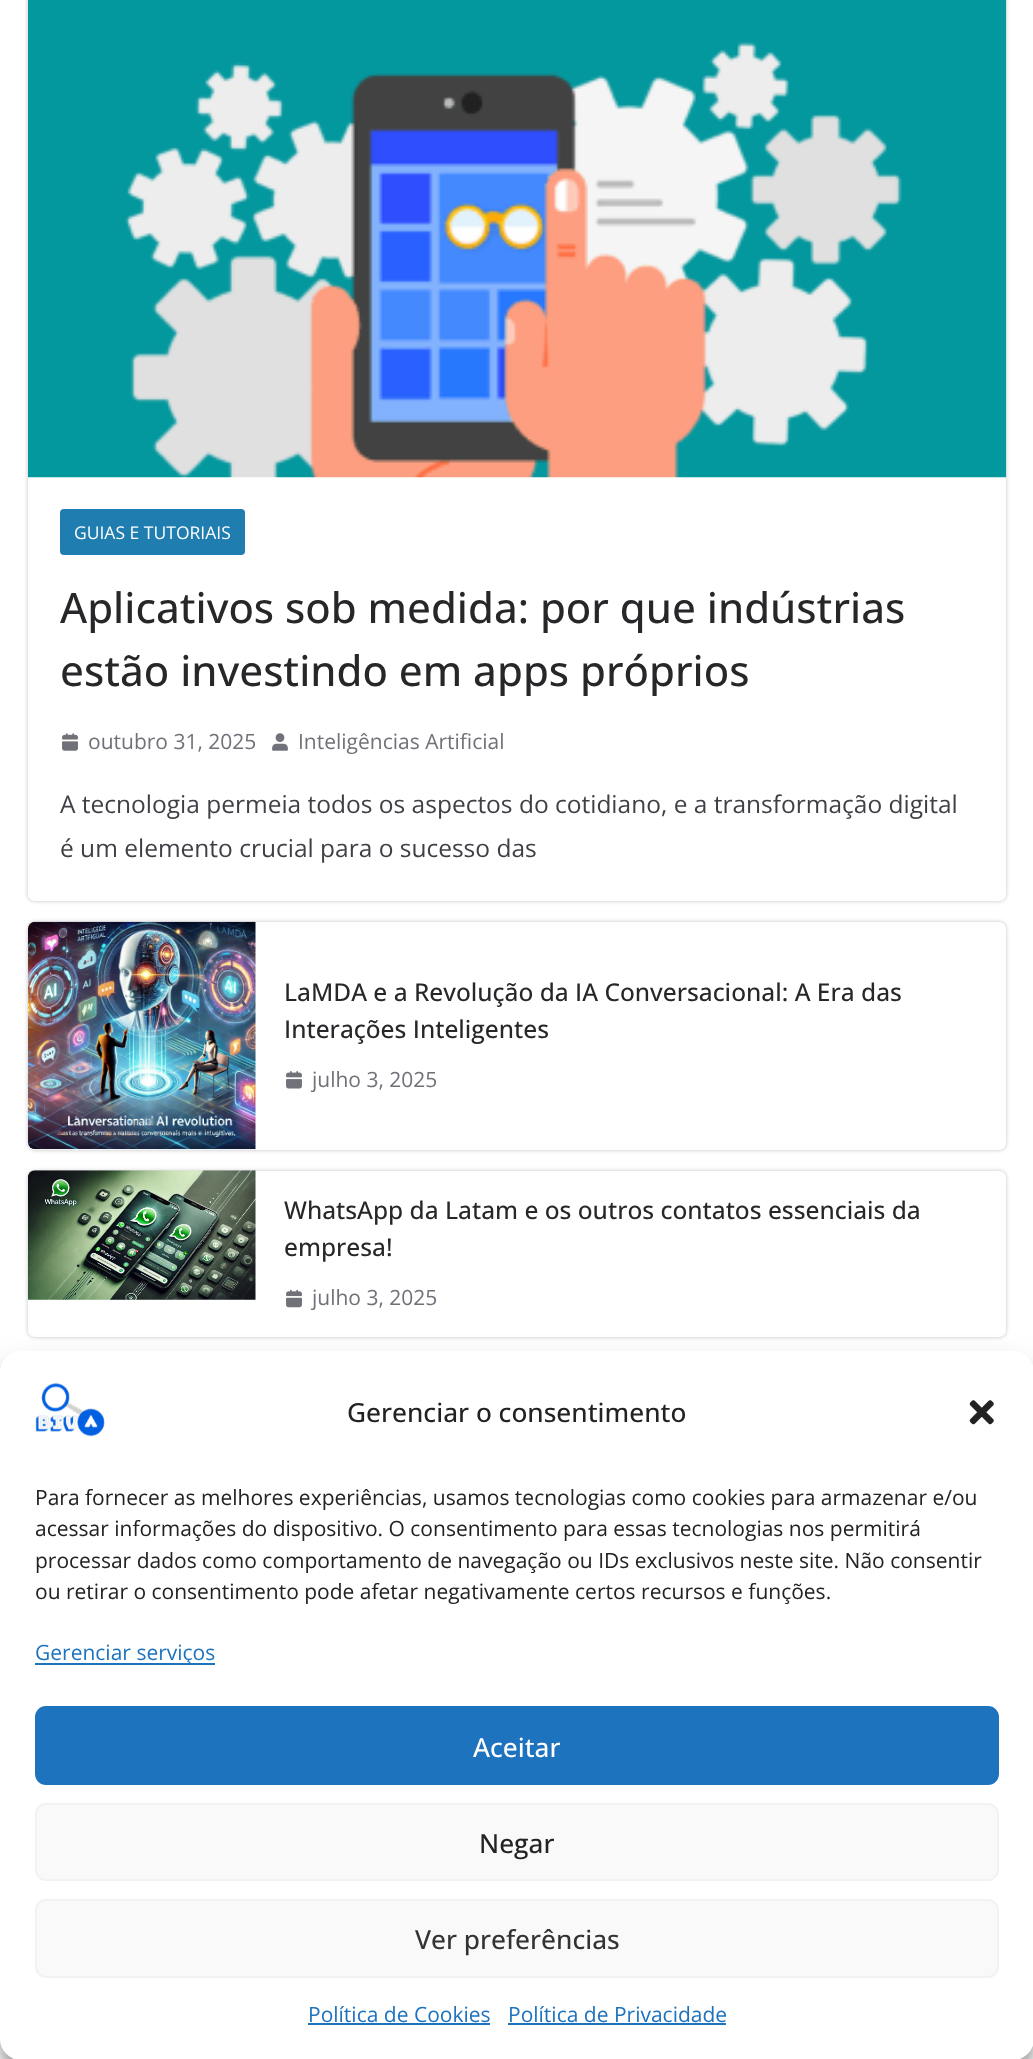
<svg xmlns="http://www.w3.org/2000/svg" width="1033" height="2059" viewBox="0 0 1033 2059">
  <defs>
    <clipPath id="clip1"><path d="M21 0H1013V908H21ZM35-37H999C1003-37 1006-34 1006-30V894C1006 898 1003 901 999 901H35C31 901 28 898 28 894V-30C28-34 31-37 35-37Z" clip-rule="evenodd"/></clipPath>
    <filter id="blur1" x="-50%" y="-200%" width="200%" height="500%"><feGaussianBlur stdDeviation="2"/></filter>
    <clipPath id="clip2"><path d="M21 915H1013V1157H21ZM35 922H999C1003 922 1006 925 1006 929V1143C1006 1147 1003 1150 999 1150H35C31 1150 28 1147 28 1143V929C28 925 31 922 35 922Z" clip-rule="evenodd"/></clipPath>
    <clipPath id="clip3"><path d="M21 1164H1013V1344H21ZM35 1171H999C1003 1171 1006 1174 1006 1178V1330C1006 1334 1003 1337 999 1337H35C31 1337 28 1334 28 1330V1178C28 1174 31 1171 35 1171Z" clip-rule="evenodd"/></clipPath>
    <filter id="blur2" x="-50%" y="-200%" width="200%" height="500%"><feGaussianBlur stdDeviation="5"/></filter>
    <filter id="blur3" x="-50%" y="-200%" width="200%" height="500%"><feGaussianBlur stdDeviation="17.5"/></filter>
  </defs>
  <rect width="100%" height="100%" fill="#ffffff"/>
  <g clip-path="url(#clip1)">
    <rect x="28" y="-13" width="978" height="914" rx="7" fill="#000000" fill-opacity="0.24" filter="url(#blur1)"/>
  </g>
  <image x="28" y="0" width="979" height="478" href="img1.png"/>
  <rect x="60" y="509" width="185" height="46" rx="4" fill="#207daf"/>
  <text x="74" y="539" font-family="Open Sans" font-size="17.5" fill="#ffffff">GUIAS E TUTORIAIS</text>
  <text x="60" y="623" font-family="Open Sans" font-size="42" font-weight="500" fill="#27272a">Aplicativos sob medida: por que indústrias</text>
  <text x="60" y="686" font-family="Open Sans" font-size="42" font-weight="500" fill="#27272a">estão investindo em apps próprios</text>
  <image x="62" y="733" width="16" height="18" href="img2.png"/>
  <text x="88" y="749" font-family="Open Sans" font-size="21" fill="#71717a">outubro 31, 2025</text>
  <image x="272" y="733" width="16" height="18" href="img3.png"/>
  <text x="298" y="749" font-family="Open Sans" font-size="21" fill="#71717a">Inteligências Artificial</text>
  <text x="60" y="813" font-family="Open Sans" font-size="24.5" fill="#3f3f46">A tecnologia permeia todos os aspectos do cotidiano, e a transformação digital</text>
  <text x="60" y="857" font-family="Open Sans" font-size="24.5" fill="#3f3f46">é um elemento crucial para o sucesso das</text>
  <g clip-path="url(#clip2)">
    <rect x="28" y="922" width="978" height="228" rx="7" fill="#000000" fill-opacity="0.24" filter="url(#blur1)"/>
  </g>
  <image x="28" y="921" width="228" height="229" href="img4.png"/>
  <text x="284" y="1001" font-family="Open Sans" font-size="24.5" font-weight="500" fill="#27272a">LaMDA e a Revolução da IA Conversacional: A Era das</text>
  <text x="284" y="1038" font-family="Open Sans" font-size="24.5" font-weight="500" fill="#27272a">Interações Inteligentes</text>
  <image x="286" y="1071" width="16" height="18" href="img5.png"/>
  <text x="312" y="1087" font-family="Open Sans" font-size="21" fill="#71717a">julho 3, 2025</text>
  <g clip-path="url(#clip3)">
    <rect x="28" y="1171" width="978" height="166" rx="7" fill="#000000" fill-opacity="0.24" filter="url(#blur1)"/>
  </g>
  <image x="28" y="1170" width="228" height="130" href="img6.png"/>
  <text x="284" y="1219" font-family="Open Sans" font-size="24.5" font-weight="500" fill="#27272a">WhatsApp da Latam e os outros contatos essenciais da</text>
  <text x="284" y="1256" font-family="Open Sans" font-size="24.5" font-weight="500" fill="#27272a">empresa!</text>
  <image x="286" y="1289" width="16" height="19" href="img7.png"/>
  <text x="312" y="1305" font-family="Open Sans" font-size="21" fill="#71717a">julho 3, 2025</text>
  <rect x="0" y="1362" width="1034" height="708" rx="21" fill="#000000" fill-opacity="0.23" filter="url(#blur2)"/>
  <rect x="0" y="1369" width="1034" height="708" rx="21" fill="#000000" fill-opacity="0.19" filter="url(#blur3)"/>
  <rect x="0" y="1351" width="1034" height="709" rx="21" fill="#ffffff"/>
  <image x="35" y="1382" width="70" height="55" href="img8.png"/>
  <text x="347" y="1422" font-family="Open Sans" font-size="26.25" font-weight="500" fill="#222222">Gerenciar o consentimento</text>
  <image x="969" y="1400" width="25" height="25" href="img9.png"/>
  <text x="35" y="1505" font-family="Open Sans" font-size="21" fill="#222222">Para fornecer as melhores experiências, usamos tecnologias como cookies para armazenar e/ou</text>
  <text x="35" y="1536" font-family="Open Sans" font-size="21" fill="#222222">acessar informações do dispositivo. O consentimento para essas tecnologias nos permitirá</text>
  <text x="35" y="1568" font-family="Open Sans" font-size="21" fill="#222222">processar dados como comportamento de navegação ou IDs exclusivos neste site. Não consentir</text>
  <text x="35" y="1599" font-family="Open Sans" font-size="21" fill="#222222">ou retirar o consentimento pode afetar negativamente certos recursos e funções.</text>
  <rect x="35" y="1663" width="180" height="2" fill="#1e73be"/>
  <text x="35" y="1660" font-family="Open Sans" font-size="21" fill="#1e73be">Gerenciar serviços</text>
  <rect x="36" y="1707" width="962" height="77" rx="10" fill="#1e73be" stroke="#1e73be" stroke-width="2"/>
  <text x="473" y="1757" font-family="Open Sans" font-size="26.25" font-weight="500" fill="#ffffff">Aceitar</text>
  <rect x="36" y="1804" width="962" height="76" rx="10" fill="#f9f9f9" stroke="#f2f2f2" stroke-width="2"/>
  <text x="479" y="1853" font-family="Open Sans" font-size="26.25" font-weight="500" fill="#222222">Negar</text>
  <rect x="36" y="1900" width="962" height="77" rx="10" fill="#f9f9f9" stroke="#f2f2f2" stroke-width="2"/>
  <text x="415" y="1949" font-family="Open Sans" font-size="26.25" font-weight="500" fill="#333333">Ver preferências</text>
  <text x="308" y="2022" font-family="Open Sans" font-size="21" fill="#1e73be">Política de Cookies</text>
  <rect x="308" y="2023" width="182" height="2" fill="#1e73be"/>
  <text x="508" y="2022" font-family="Open Sans" font-size="21" fill="#1e73be">Política de Privacidade</text>
  <rect x="508" y="2023" width="218" height="2" fill="#1e73be"/>
</svg>
